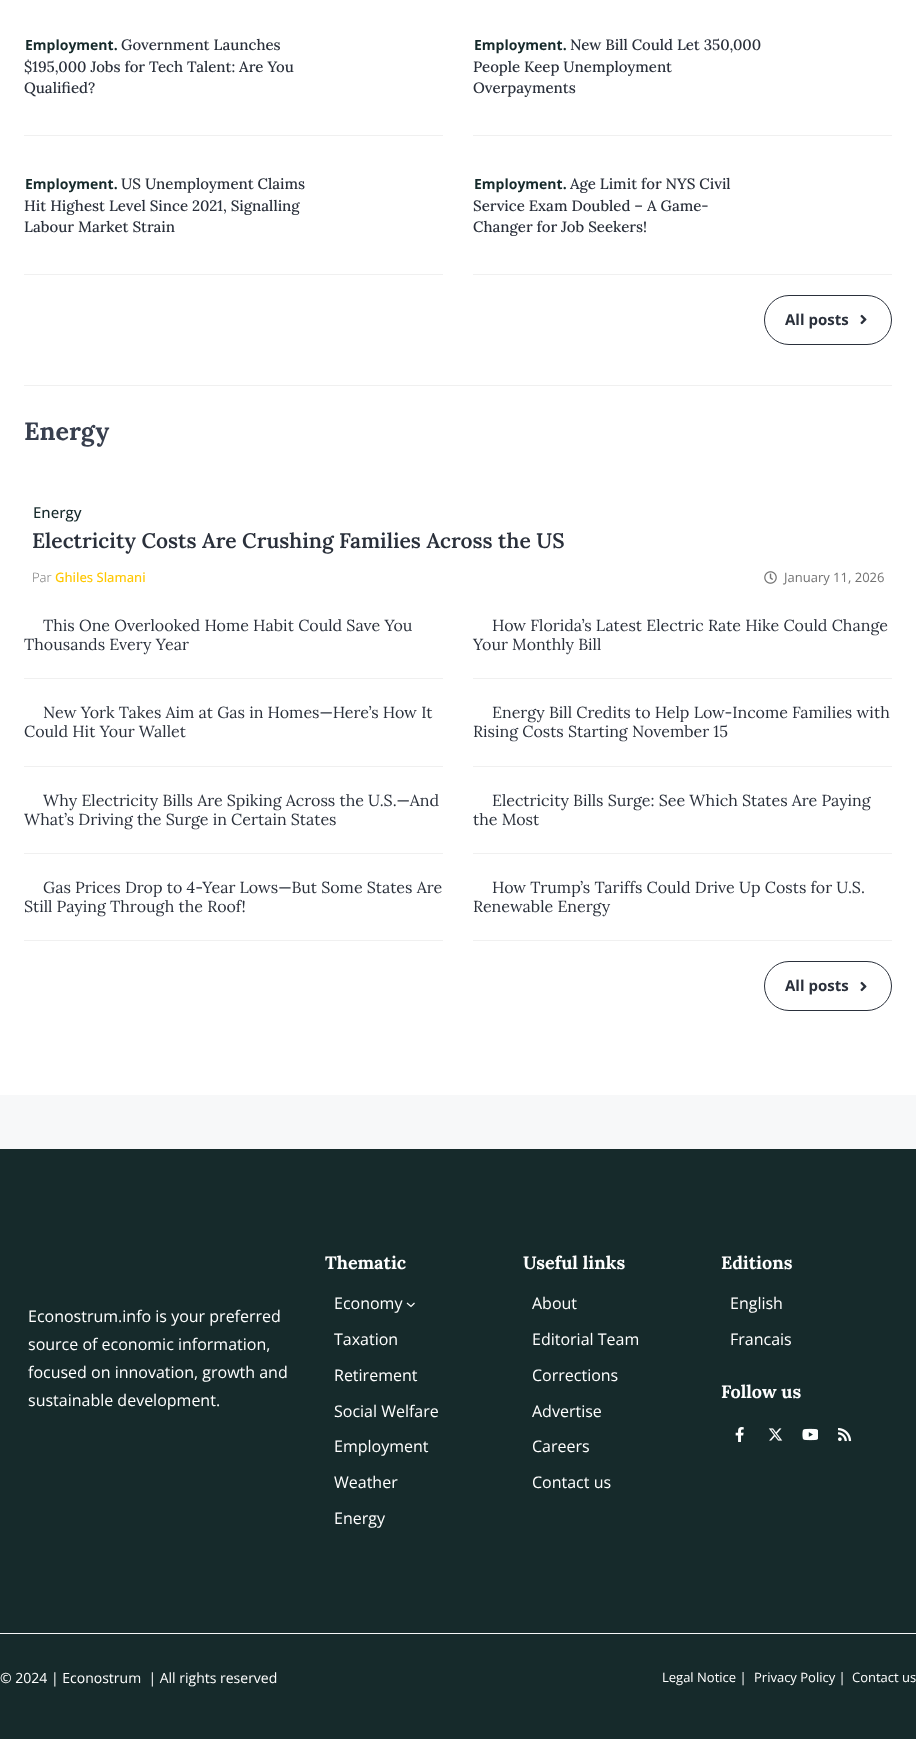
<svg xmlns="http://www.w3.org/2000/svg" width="916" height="1739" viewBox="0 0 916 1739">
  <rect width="100%" height="100%" fill="#f7f8f9"/>
  <rect x="0" y="0" width="916" height="1095" fill="#ffffff"/>
  <rect x="24" y="385" width="868" height="1" fill="#f0f0f0"/>
  <rect x="24" y="135" width="419" height="1" fill="#f0f0f0"/>
  <text x="25" y="50" font-family="Open Sans" font-size="14" font-weight="bold" fill="#162a2b">Employment.</text>
  <text x="121" y="50" font-family="Lora" font-size="15" font-weight="500" fill="#2a303b">Government Launches</text>
  <text x="24" y="72" font-family="Lora" font-size="15" font-weight="500" fill="#2a303b">$195,000 Jobs for Tech Talent: Are You</text>
  <text x="24" y="93" font-family="Lora" font-size="15" font-weight="500" fill="#2a303b">Qualified?</text>
  <rect x="473" y="135" width="419" height="1" fill="#f0f0f0"/>
  <text x="474" y="50" font-family="Open Sans" font-size="14" font-weight="bold" fill="#162a2b">Employment.</text>
  <text x="570" y="50" font-family="Lora" font-size="15" font-weight="500" fill="#2a303b">New Bill Could Let 350,000</text>
  <text x="473" y="72" font-family="Lora" font-size="15" font-weight="500" fill="#2a303b">People Keep Unemployment</text>
  <text x="473" y="93" font-family="Lora" font-size="15" font-weight="500" fill="#2a303b">Overpayments</text>
  <rect x="24" y="274" width="419" height="1" fill="#f0f0f0"/>
  <text x="25" y="189" font-family="Open Sans" font-size="14" font-weight="bold" fill="#162a2b">Employment.</text>
  <text x="121" y="189" font-family="Lora" font-size="15" font-weight="500" fill="#2a303b">US Unemployment Claims</text>
  <text x="24" y="211" font-family="Lora" font-size="15" font-weight="500" fill="#2a303b">Hit Highest Level Since 2021, Signalling</text>
  <text x="24" y="232" font-family="Lora" font-size="15" font-weight="500" fill="#2a303b">Labour Market Strain</text>
  <rect x="473" y="274" width="419" height="1" fill="#f0f0f0"/>
  <text x="474" y="189" font-family="Open Sans" font-size="14" font-weight="bold" fill="#162a2b">Employment.</text>
  <text x="570" y="189" font-family="Lora" font-size="15" font-weight="500" fill="#2a303b">Age Limit for NYS Civil</text>
  <text x="473" y="211" font-family="Lora" font-size="15" font-weight="500" fill="#2a303b">Service Exam Doubled – A Game-</text>
  <text x="473" y="232" font-family="Lora" font-size="15" font-weight="500" fill="#2a303b">Changer for Job Seekers!</text>
  <rect x="764.5" y="295.5" width="127" height="49" rx="24.5" fill="none" stroke="#2a303b"/>
  <text x="785" y="325" font-family="Open Sans" font-size="15" font-weight="bold" fill="#2a303b">All posts</text>
  <image x="860" y="314" width="7" height="11" href="img1.png"/>
  <text x="24" y="440" font-family="Lora" font-size="25" font-weight="bold" fill="#383f4e">Energy</text>
  <text x="33" y="518" font-family="Open Sans" font-size="15" font-weight="500" fill="#162a2b">Energy</text>
  <text x="32" y="548" font-family="Lora" font-size="21" font-weight="600" fill="#2a303b">Electricity Costs Are Crushing Families Across the US</text>
  <text x="32" y="582" font-family="Open Sans" font-size="13" font-weight="300" fill="#737373">Par</text>
  <text x="55" y="582" font-family="Open Sans" font-size="13" font-weight="500" fill="#ffc700">Ghiles Slamani</text>
  <image x="764" y="571" width="13" height="13" href="img2.png"/>
  <text x="784" y="582" font-family="Open Sans" font-size="13" fill="#737373">January 11, 2026</text>
  <rect x="24" y="678" width="419" height="1" fill="#f0f0f0"/>
  <text x="43" y="631" font-family="Lora" font-size="16" fill="#2a303b">This One Overlooked Home Habit Could Save You</text>
  <text x="24" y="650" font-family="Lora" font-size="16" fill="#2a303b">Thousands Every Year</text>
  <rect x="473" y="678" width="419" height="1" fill="#f0f0f0"/>
  <text x="492" y="631" font-family="Lora" font-size="16" fill="#2a303b">How Florida’s Latest Electric Rate Hike Could Change</text>
  <text x="473" y="650" font-family="Lora" font-size="16" fill="#2a303b">Your Monthly Bill</text>
  <rect x="24" y="766" width="419" height="1" fill="#f0f0f0"/>
  <text x="43" y="718" font-family="Lora" font-size="16" fill="#2a303b">New York Takes Aim at Gas in Homes—Here’s How It</text>
  <text x="24" y="737" font-family="Lora" font-size="16" fill="#2a303b">Could Hit Your Wallet</text>
  <rect x="473" y="766" width="419" height="1" fill="#f0f0f0"/>
  <text x="492" y="718" font-family="Lora" font-size="16" fill="#2a303b">Energy Bill Credits to Help Low-Income Families with</text>
  <text x="473" y="737" font-family="Lora" font-size="16" fill="#2a303b">Rising Costs Starting November 15</text>
  <rect x="24" y="853" width="419" height="1" fill="#f0f0f0"/>
  <text x="43" y="806" font-family="Lora" font-size="16" fill="#2a303b">Why Electricity Bills Are Spiking Across the U.S.—And</text>
  <text x="24" y="825" font-family="Lora" font-size="16" fill="#2a303b">What’s Driving the Surge in Certain States</text>
  <rect x="473" y="853" width="419" height="1" fill="#f0f0f0"/>
  <text x="492" y="806" font-family="Lora" font-size="16" fill="#2a303b">Electricity Bills Surge: See Which States Are Paying</text>
  <text x="473" y="825" font-family="Lora" font-size="16" fill="#2a303b">the Most</text>
  <rect x="24" y="940" width="419" height="1" fill="#f0f0f0"/>
  <text x="43" y="893" font-family="Lora" font-size="16" fill="#2a303b">Gas Prices Drop to 4-Year Lows—But Some States Are</text>
  <text x="24" y="912" font-family="Lora" font-size="16" fill="#2a303b">Still Paying Through the Roof!</text>
  <rect x="473" y="940" width="419" height="1" fill="#f0f0f0"/>
  <text x="492" y="893" font-family="Lora" font-size="16" fill="#2a303b">How Trump’s Tariffs Could Drive Up Costs for U.S.</text>
  <text x="473" y="912" font-family="Lora" font-size="16" fill="#2a303b">Renewable Energy</text>
  <rect x="764.5" y="961.5" width="127" height="49" rx="24.5" fill="none" stroke="#2a303b"/>
  <text x="785" y="991" font-family="Open Sans" font-size="15" font-weight="bold" fill="#2a303b">All posts</text>
  <image x="860" y="981" width="7" height="11" href="img1.png"/>
  <rect x="0" y="1149" width="916" height="484" fill="#162a2b"/>
  <text x="28" y="1322" font-family="Open Sans" font-size="16" fill="#ffffff">Econostrum.info is your preferred</text>
  <text x="28" y="1350" font-family="Open Sans" font-size="16" fill="#ffffff">source of economic information,</text>
  <text x="28" y="1378" font-family="Open Sans" font-size="16" fill="#ffffff">focused on innovation, growth and</text>
  <text x="28" y="1406" font-family="Open Sans" font-size="16" fill="#ffffff">sustainable development.</text>
  <text x="325" y="1269" font-family="Lora" font-size="18" font-weight="bold" fill="#ffffff">Thematic</text>
  <text x="334" y="1309" font-family="Open Sans" font-size="16" fill="#ffffff">Economy</text>
  <path d="M407 1303L411 1306.5L414.5 1303" fill="none" stroke="#ffffff" stroke-width="1.2"/>
  <text x="334" y="1345" font-family="Open Sans" font-size="16" fill="#ffffff">Taxation</text>
  <text x="334" y="1381" font-family="Open Sans" font-size="16" fill="#ffffff">Retirement</text>
  <text x="334" y="1417" font-family="Open Sans" font-size="16" fill="#ffffff">Social Welfare</text>
  <text x="334" y="1452" font-family="Open Sans" font-size="16" fill="#ffffff">Employment</text>
  <text x="334" y="1488" font-family="Open Sans" font-size="16" fill="#ffffff">Weather</text>
  <text x="334" y="1524" font-family="Open Sans" font-size="16" fill="#ffffff">Energy</text>
  <text x="523" y="1269" font-family="Lora" font-size="18" font-weight="bold" fill="#ffffff">Useful links</text>
  <text x="532" y="1309" font-family="Open Sans" font-size="16" fill="#ffffff">About</text>
  <text x="532" y="1345" font-family="Open Sans" font-size="16" fill="#ffffff">Editorial Team</text>
  <text x="532" y="1381" font-family="Open Sans" font-size="16" fill="#ffffff">Corrections</text>
  <text x="532" y="1417" font-family="Open Sans" font-size="16" fill="#ffffff">Advertise</text>
  <text x="532" y="1452" font-family="Open Sans" font-size="16" fill="#ffffff">Careers</text>
  <text x="532" y="1488" font-family="Open Sans" font-size="16" fill="#ffffff">Contact us</text>
  <text x="721" y="1269" font-family="Lora" font-size="18" font-weight="bold" fill="#ffffff">Editions</text>
  <text x="730" y="1309" font-family="Open Sans" font-size="16" fill="#ffffff">English</text>
  <text x="730" y="1345" font-family="Open Sans" font-size="16" fill="#ffffff">Francais</text>
  <text x="721" y="1398" font-family="Lora" font-size="18" font-weight="bold" fill="#ffffff">Follow us</text>
  <image x="735" y="1427" width="9" height="15" href="img3.png"/>
  <image x="768" y="1428" width="15" height="13" href="img4.png"/>
  <image x="802" y="1428" width="16" height="13" href="img5.png"/>
  <image x="838" y="1428" width="14" height="14" href="img6.png"/>
  <rect x="0" y="1634" width="916" height="105" fill="#162a2b"/>
  <text x="0" y="1683" font-family="Open Sans" font-size="14" fill="#ffffff" xml:space="preserve">© 2024 | Econostrum  | All rights reserved</text>
  <text x="662" y="1682" font-family="Open Sans" font-size="13" fill="#ffffff">Legal Notice |</text>
  <text x="754" y="1682" font-family="Open Sans" font-size="13" fill="#ffffff">Privacy Policy |</text>
  <text x="852" y="1682" font-family="Open Sans" font-size="13" fill="#ffffff">Contact us</text>
</svg>
